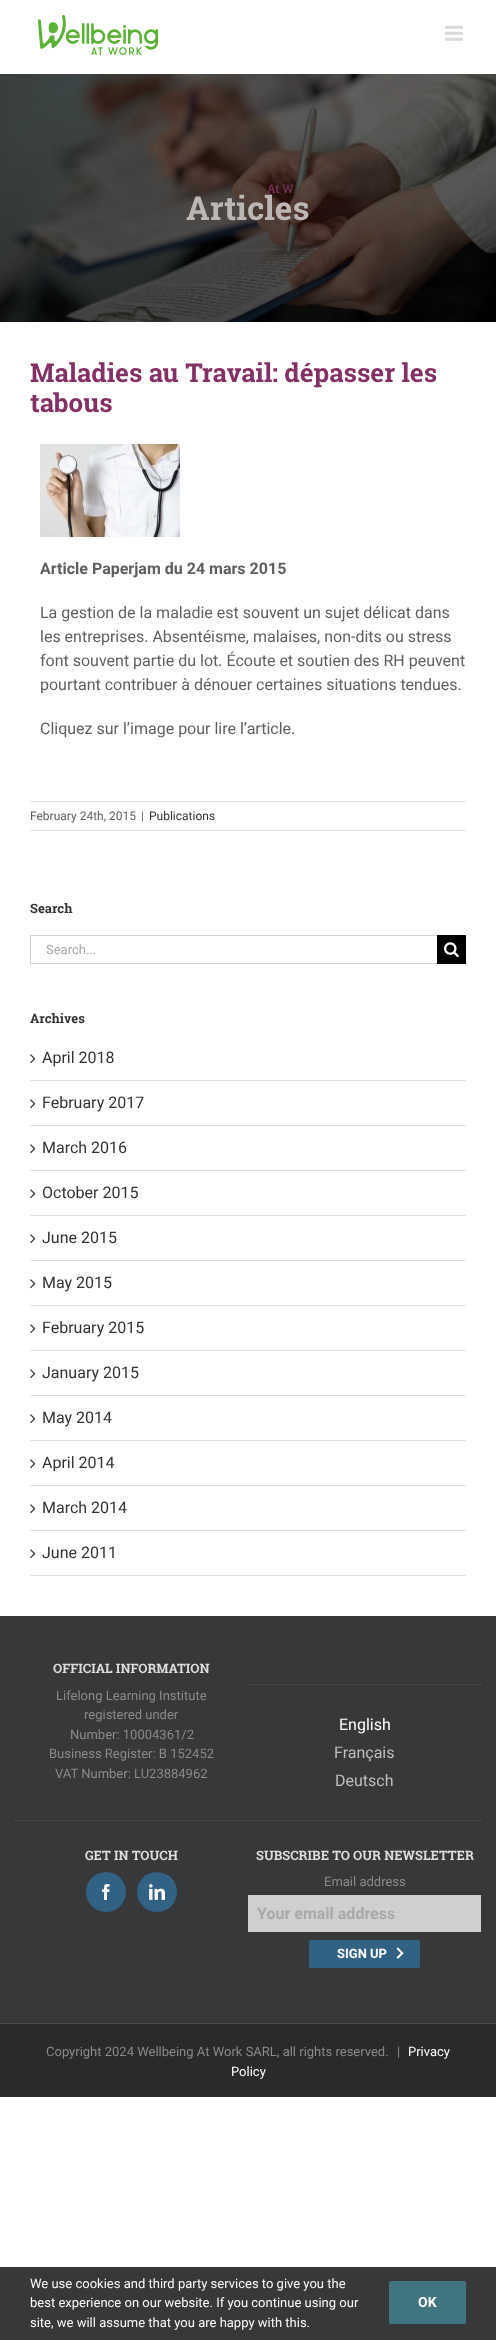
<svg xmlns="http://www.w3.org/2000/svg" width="496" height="2340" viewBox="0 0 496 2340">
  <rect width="100%" height="100%" fill="#ffffff"/>
  <image x="38" y="15" width="120" height="40" href="img1.png"/>
  <image x="445" y="25" width="18" height="16" href="img2.png"/>
  <image x="0" y="74" width="496" height="248" href="img3.png"/>
  <text x="267" y="193" font-family="Roboto Slab" font-size="12" font-weight="bold" fill="#6b314f">At W</text>
  <text x="186" y="220" font-family="Roboto Slab" font-size="33" font-weight="bold" fill="#bcb7b5">Articles</text>
  <text x="30" y="382" font-family="Roboto Slab" font-size="26" font-weight="bold" fill="#833164">Maladies au Travail: dépasser les</text>
  <text x="30" y="412" font-family="Roboto Slab" font-size="26" font-weight="bold" fill="#833164">tabous</text>
  <image x="40" y="444" width="140" height="93" href="img4.png"/>
  <text x="40" y="574" font-family="Roboto" font-size="16" font-weight="bold" fill="#5f5f5f">Article Paperjam du 24 mars 2015</text>
  <text x="40" y="618" font-family="Roboto" font-size="16" fill="#5f5f5f">La gestion de la maladie est souvent un sujet délicat dans</text>
  <text x="40" y="642" font-family="Roboto" font-size="16" fill="#5f5f5f">les entreprises. Absentéisme, malaises, non-dits ou stress</text>
  <text x="40" y="666" font-family="Roboto" font-size="16" fill="#5f5f5f">font souvent partie du lot. Écoute et soutien des RH peuvent</text>
  <text x="40" y="690" font-family="Roboto" font-size="16" fill="#5f5f5f">pourtant contribuer à dénouer certaines situations tendues.</text>
  <text x="40" y="734" font-family="Roboto" font-size="16" fill="#5f5f5f">Cliquez sur l’image pour lire l’article.</text>
  <rect x="30" y="801" width="436" height="1" fill="#e0dede"/>
  <rect x="30" y="830" width="436" height="1" fill="#e0dede"/>
  <text x="30" y="820" font-family="Roboto" font-size="12" fill="#5f5f5f">February 24th, 2015</text>
  <text x="141" y="820" font-family="Roboto" font-size="12" fill="#5f5f5f">|</text>
  <text x="149" y="820" font-family="Roboto" font-size="12" fill="#333333">Publications</text>
  <text x="30" y="913" font-family="Roboto Slab" font-size="13" font-weight="bold" fill="#333333">Search</text>
  <rect x="30" y="935" width="407" height="1" fill="#d2d2d2"/>
  <rect x="30" y="963" width="407" height="1" fill="#d2d2d2"/>
  <rect x="30" y="935" width="1" height="29" fill="#d2d2d2"/>
  <text x="46" y="954" font-family="Roboto" font-size="13" fill="#aaa9a9">Search...</text>
  <rect x="437" y="935" width="29" height="29" fill="#000000"/>
  <image x="444" y="942" width="15" height="16" href="img5.png"/>
  <text x="30" y="1023" font-family="Roboto Slab" font-size="13" font-weight="bold" fill="#333333">Archives</text>
  <rect x="30" y="1080" width="436" height="1" fill="#e0dede"/>
  <image x="30" y="1054" width="6" height="10" href="img6.png"/>
  <text x="42" y="1063" font-family="Roboto" font-size="16" fill="#333333">April 2018</text>
  <rect x="30" y="1125" width="436" height="1" fill="#e0dede"/>
  <image x="30" y="1099" width="6" height="10" href="img6.png"/>
  <text x="42" y="1108" font-family="Roboto" font-size="16" fill="#333333">February 2017</text>
  <rect x="30" y="1170" width="436" height="1" fill="#e0dede"/>
  <image x="30" y="1144" width="6" height="10" href="img6.png"/>
  <text x="42" y="1153" font-family="Roboto" font-size="16" fill="#333333">March 2016</text>
  <rect x="30" y="1215" width="436" height="1" fill="#e0dede"/>
  <image x="30" y="1189" width="6" height="10" href="img6.png"/>
  <text x="42" y="1198" font-family="Roboto" font-size="16" fill="#333333">October 2015</text>
  <rect x="30" y="1260" width="436" height="1" fill="#e0dede"/>
  <image x="30" y="1234" width="6" height="10" href="img6.png"/>
  <text x="42" y="1243" font-family="Roboto" font-size="16" fill="#333333">June 2015</text>
  <rect x="30" y="1305" width="436" height="1" fill="#e0dede"/>
  <image x="30" y="1279" width="6" height="10" href="img6.png"/>
  <text x="42" y="1288" font-family="Roboto" font-size="16" fill="#333333">May 2015</text>
  <rect x="30" y="1350" width="436" height="1" fill="#e0dede"/>
  <image x="30" y="1324" width="6" height="10" href="img6.png"/>
  <text x="42" y="1333" font-family="Roboto" font-size="16" fill="#333333">February 2015</text>
  <rect x="30" y="1395" width="436" height="1" fill="#e0dede"/>
  <image x="30" y="1369" width="6" height="10" href="img6.png"/>
  <text x="42" y="1378" font-family="Roboto" font-size="16" fill="#333333">January 2015</text>
  <rect x="30" y="1440" width="436" height="1" fill="#e0dede"/>
  <image x="30" y="1414" width="6" height="10" href="img6.png"/>
  <text x="42" y="1423" font-family="Roboto" font-size="16" fill="#333333">May 2014</text>
  <rect x="30" y="1485" width="436" height="1" fill="#e0dede"/>
  <image x="30" y="1459" width="6" height="10" href="img6.png"/>
  <text x="42" y="1468" font-family="Roboto" font-size="16" fill="#333333">April 2014</text>
  <rect x="30" y="1530" width="436" height="1" fill="#e0dede"/>
  <image x="30" y="1504" width="6" height="10" href="img6.png"/>
  <text x="42" y="1513" font-family="Roboto" font-size="16" fill="#333333">March 2014</text>
  <rect x="30" y="1575" width="436" height="1" fill="#e0dede"/>
  <image x="30" y="1549" width="6" height="10" href="img6.png"/>
  <text x="42" y="1558" font-family="Roboto" font-size="16" fill="#333333">June 2011</text>
  <rect x="0" y="1616" width="496" height="407" fill="#363839"/>
  <text x="53" y="1673" font-family="Roboto Slab" font-size="13" font-weight="bold" fill="#dddddd">OFFICIAL INFORMATION</text>
  <text x="56" y="1700" font-family="Roboto" font-size="13" fill="#8c8989">Lifelong Learning Institute</text>
  <text x="84" y="1719" font-family="Roboto" font-size="13" fill="#8c8989">registered under</text>
  <text x="70" y="1739" font-family="Roboto" font-size="13" fill="#8c8989">Number: 10004361/2</text>
  <text x="49" y="1758" font-family="Roboto" font-size="13" fill="#8c8989">Business Register: B 152452</text>
  <text x="55" y="1778" font-family="Roboto" font-size="13" fill="#8c8989">VAT Number: LU23884962</text>
  <path d="M248 1684.5H481" fill="none" stroke="#575757" stroke-dasharray="1 1"/>
  <text x="339" y="1730" font-family="Roboto" font-size="16" fill="#ffffff">English</text>
  <text x="334" y="1758" font-family="Roboto" font-size="16" fill="#bfbfbf">Français</text>
  <text x="335" y="1786" font-family="Roboto" font-size="16" fill="#bfbfbf">Deutsch</text>
  <path d="M15 1820.5H248" fill="none" stroke="#575757" stroke-dasharray="1 1"/>
  <text x="85" y="1860" font-family="Roboto Slab" font-size="13" font-weight="bold" fill="#dddddd">GET IN TOUCH</text>
  <circle cx="106" cy="1892" r="20" fill="#316183"/>
  <image x="102" y="1884" width="8" height="16" href="img7.png"/>
  <circle cx="157" cy="1892" r="20" fill="#316183"/>
  <image x="149" y="1884" width="16" height="16" href="img8.png"/>
  <path d="M248 1820.5H481" fill="none" stroke="#575757" stroke-dasharray="1 1"/>
  <text x="256" y="1860" font-family="Roboto Slab" font-size="13" font-weight="bold" fill="#dddddd">SUBSCRIBE TO OUR NEWSLETTER</text>
  <text x="324" y="1886" font-family="Roboto" font-size="13" fill="#8c8989">Email address</text>
  <rect x="248" y="1895" width="233" height="37" fill="#cfcfcf"/>
  <text x="257" y="1919" font-family="Roboto" font-size="16" font-weight="bold" fill="#aaa9a9">Your email address</text>
  <rect x="309" y="1940" width="111" height="28" rx="2" fill="#316183"/>
  <text x="337" y="1958" font-family="Roboto" font-size="13" font-weight="bold" fill="#ffffff">SIGN UP</text>
  <image x="396" y="1947" width="8" height="12" href="img9.png"/>
  <rect x="0" y="2024" width="496" height="73" fill="#282a2b"/>
  <rect x="0" y="2023" width="496" height="1" fill="#4b4c4d"/>
  <text x="46" y="2056" font-family="Roboto" font-size="13" fill="#8c8989">Copyright 2024 Wellbeing At Work SARL, all rights reserved.</text>
  <text x="397" y="2056" font-family="Roboto" font-size="13" fill="#8c8989">|</text>
  <text x="408" y="2056" font-family="Roboto" font-size="13" fill="#ffffff">Privacy</text>
  <text x="231" y="2076" font-family="Roboto" font-size="13" fill="#ffffff">Policy</text>
  <rect x="0" y="2267" width="496" height="73" fill="#363839"/>
  <text x="30" y="2288" font-family="Roboto" font-size="13" fill="#fff9f9">We use cookies and third party services to give you the</text>
  <text x="30" y="2307" font-family="Roboto" font-size="13" fill="#fff9f9">best experience on our website. If you continue using our</text>
  <text x="30" y="2327" font-family="Roboto" font-size="13" fill="#fff9f9">site, we will assume that you are happy with this.</text>
  <rect x="389" y="2281" width="77" height="43" rx="2" fill="#407580"/>
  <text x="418" y="2307" font-family="Roboto" font-size="14" font-weight="bold" fill="#ffffff">OK</text>
</svg>
